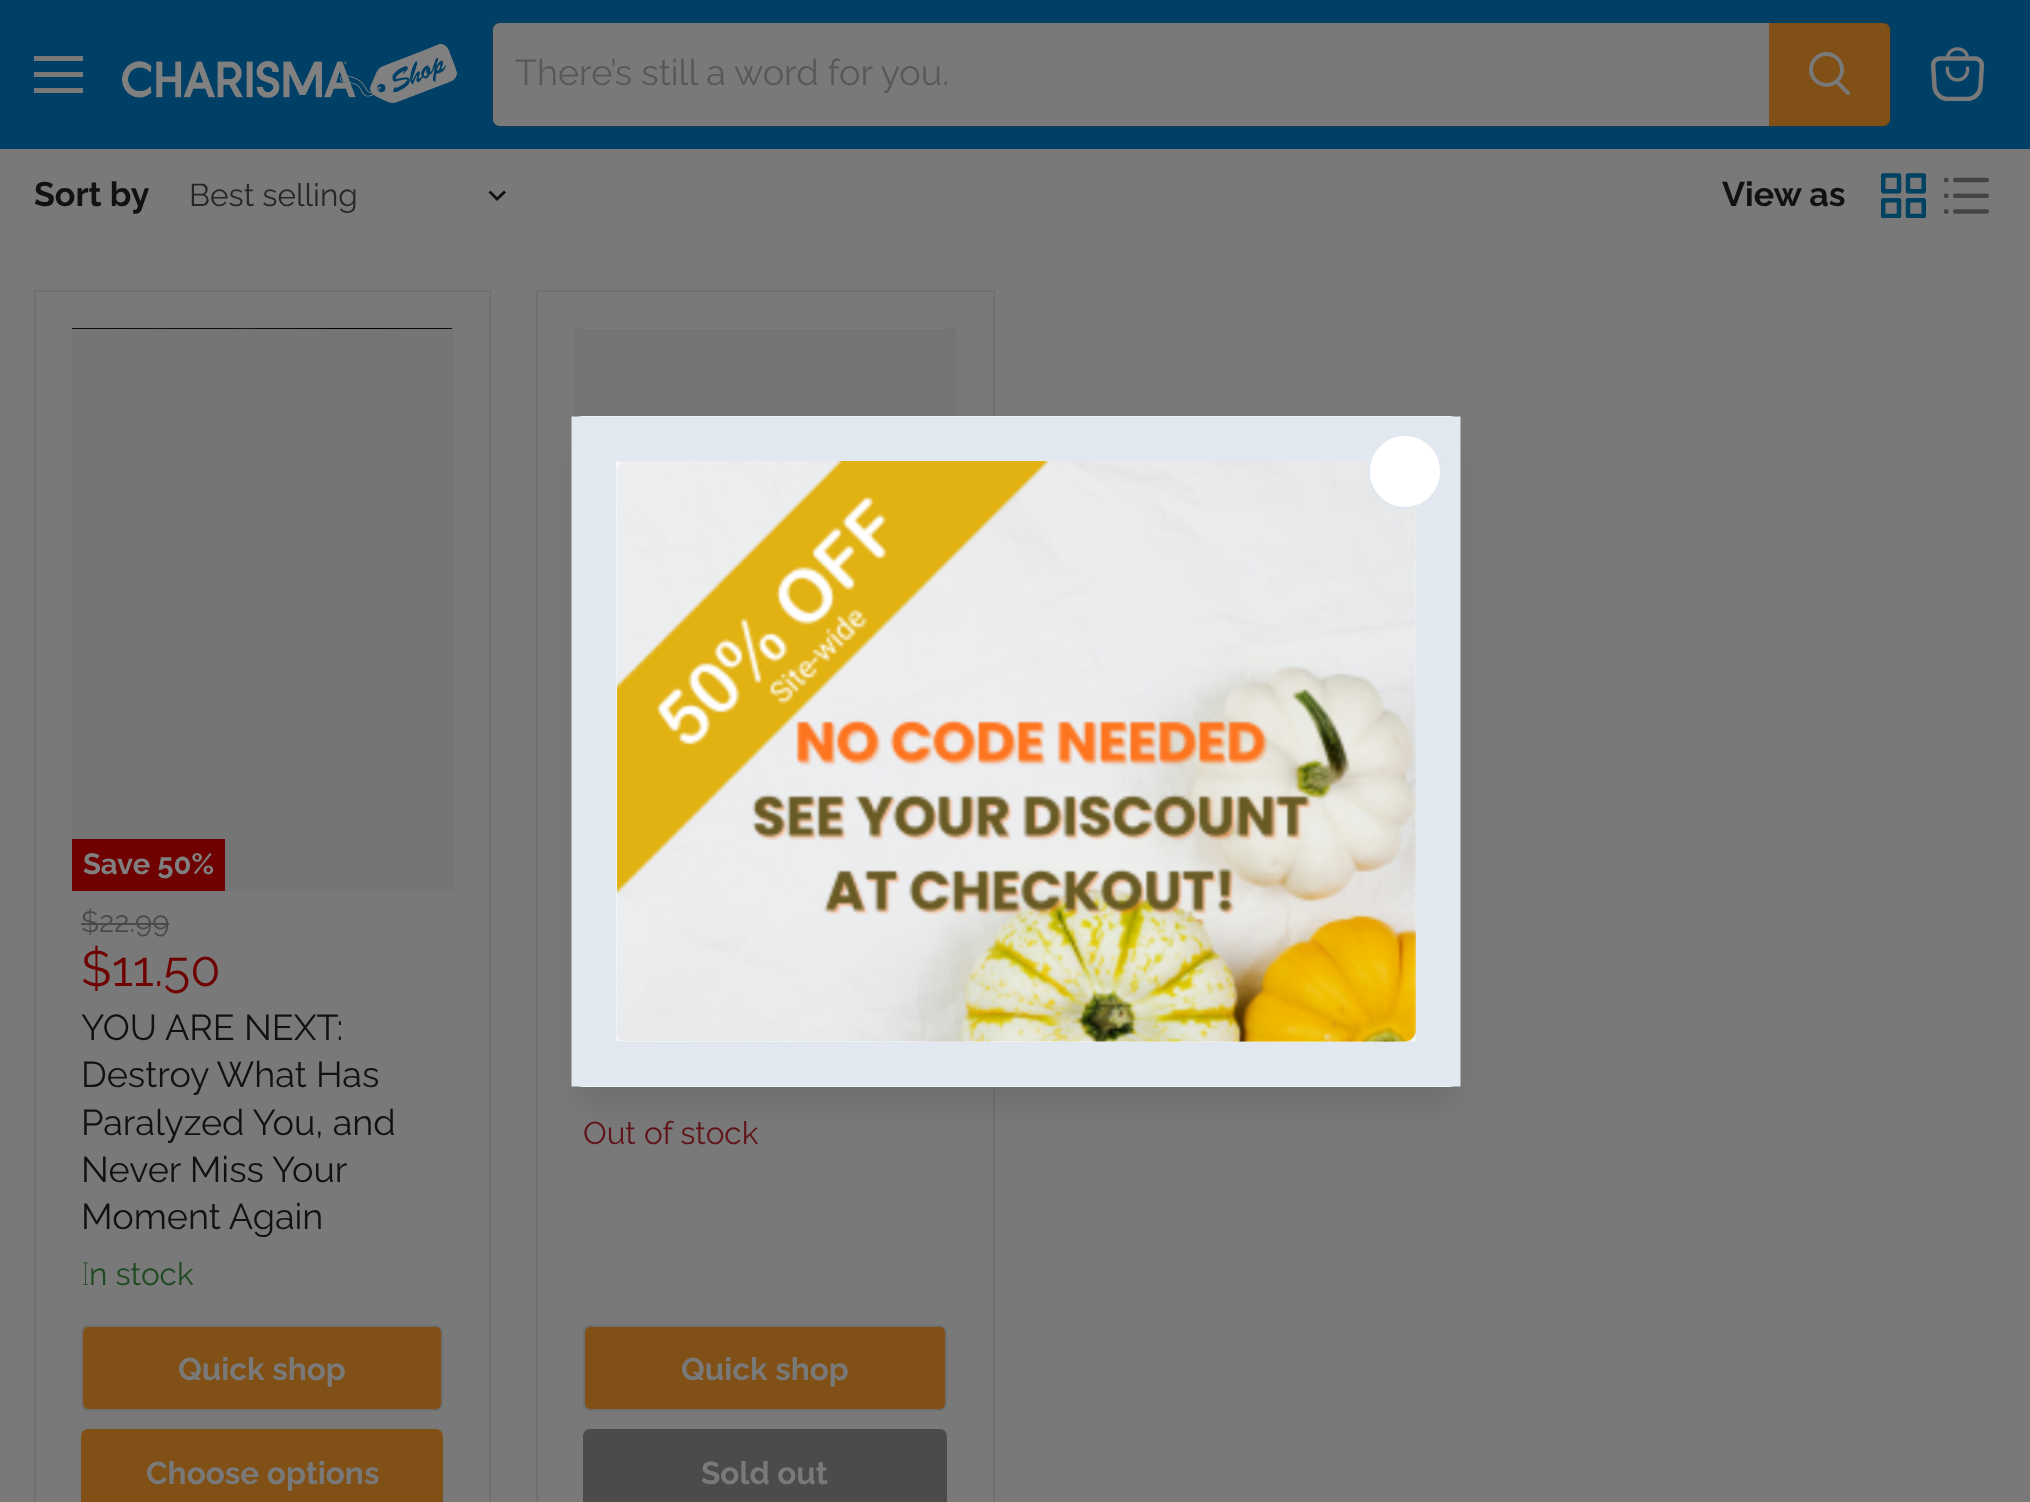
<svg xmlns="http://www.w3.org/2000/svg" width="2030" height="1502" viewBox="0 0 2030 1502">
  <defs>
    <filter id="blur1" x="-50%" y="-200%" width="200%" height="500%"><feGaussianBlur stdDeviation="17"/></filter>
    <clipPath id="clip1"><rect x="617" y="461" width="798" height="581"/></clipPath>
    <filter id="blur2" x="-50%" y="-200%" width="200%" height="500%"><feGaussianBlur stdDeviation="7"/></filter>
    <filter id="blur3" x="-50%" y="-200%" width="200%" height="500%"><feGaussianBlur stdDeviation="22.5"/></filter>
  </defs>
  <rect width="100%" height="100%" fill="#797979"/>
  <rect x="0" y="0" width="2030" height="149" fill="#003f66"/>
  <rect x="34" y="56" width="49" height="5" fill="#797979"/>
  <rect x="34" y="72" width="49" height="5" fill="#797979"/>
  <rect x="34" y="88" width="49" height="5" fill="#797979"/>
  <image x="122" y="44" width="335" height="59" href="img1.png"/>
  <rect x="492" y="21" width="1399" height="106" rx="8" fill="none" stroke="#0c3e5e" stroke-width="2"/>
  <path d="M500 23H1769V126H500C496 126 493 123 493 119V30C493 26 496 23 500 23Z" fill="#797979"/>
  <text x="515" y="85" font-family="Raleway" font-size="36" fill="#585858">There’s still a word for you.</text>
  <path d="M1770 24H1883C1886.5 24 1889 26.5 1889 30V119C1889 122.5 1886.5 125 1883 125H1770Z" fill="#805016" stroke="#805016" stroke-width="2"/>
  <path d="M1848 93L1837 82" fill="none" stroke="#797979" stroke-width="3.9" stroke-linecap="round"/>
  <circle cx="1826.5" cy="69.5" r="15.5" fill="none" stroke="#797979" stroke-width="3.9"/>
  <image x="1931" y="47" width="54" height="54" href="img2.png"/>
  <text x="34" y="206" font-family="Raleway" font-size="34" font-weight="bold" fill="#111111">Sort by</text>
  <text x="189" y="206" font-family="Raleway" font-size="31.5" fill="#272727">Best selling</text>
  <path d="M497 199L504 192.5M497 199L490.5 192.5" fill="none" stroke="#111111" stroke-width="2.8" stroke-linecap="square"/>
  <text x="1722" y="206" font-family="Raleway" font-size="34" font-weight="bold" fill="#111111">View as</text>
  <image x="1881" y="173" width="45" height="45" href="img3.png"/>
  <image x="1944" y="177" width="45" height="37" href="img4.png"/>
  <rect x="35" y="291" width="455" height="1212" fill="none" stroke="#707070" stroke-width="2"/>
  <image x="72" y="328" width="381" height="562" href="img5.png"/>
  <rect x="72" y="329" width="380" height="562" fill="#757575"/>
  <rect x="72" y="839" width="153" height="52" fill="#6f0101"/>
  <text x="83" y="874" font-family="Raleway" font-size="29.25" font-weight="bold" fill="#808080">Save 50%</text>
  <text x="81" y="932" font-family="Raleway" font-size="29.25" fill="#4a4a4a">$22.99</text>
  <rect x="81" y="923" width="88" height="2" fill="#4a4a4a"/>
  <text x="81" y="986" font-family="Raleway" font-size="49.5" fill="#6f0101">$11.50</text>
  <text x="81" y="1040" font-family="Raleway" font-size="36" fill="#111111">YOU ARE NEXT:</text>
  <text x="81" y="1087" font-family="Raleway" font-size="36" fill="#111111">Destroy What Has</text>
  <text x="81" y="1135" font-family="Raleway" font-size="36" fill="#111111">Paralyzed You, and</text>
  <text x="81" y="1182" font-family="Raleway" font-size="36" fill="#111111">Never Miss Your</text>
  <text x="81" y="1229" font-family="Raleway" font-size="36" fill="#111111">Moment Again</text>
  <text x="81" y="1285" font-family="Noto Sans" font-size="31.5" font-weight="100" fill="#1e4a21">I</text>
  <text x="89" y="1285" font-family="Raleway" font-size="31.5" fill="#1e4a21">n stock</text>
  <rect x="82" y="1326" width="360" height="84" rx="6" fill="#805016" stroke="#6f6f6f" stroke-width="2"/>
  <text x="178" y="1380" font-family="Raleway" font-size="31.5" font-weight="bold" fill="#797979">Quick shop</text>
  <rect x="82" y="1430" width="360" height="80" rx="6" fill="#805016" stroke="#805016" stroke-width="2"/>
  <text x="146" y="1484" font-family="Raleway" font-size="31.5" font-weight="bold" fill="#797979">Choose options</text>
  <rect x="537" y="291" width="457" height="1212" fill="none" stroke="#707070" stroke-width="2"/>
  <image x="573" y="328" width="381" height="89" href="img6.png"/>
  <rect x="574" y="329" width="382" height="88" fill="#757575"/>
  <text x="583" y="1144" font-family="Raleway" font-size="31.5" fill="#601318">Out of stock</text>
  <rect x="584" y="1326" width="362" height="84" rx="6" fill="#805016" stroke="#6f6f6f" stroke-width="2"/>
  <text x="681" y="1380" font-family="Raleway" font-size="31.5" font-weight="bold" fill="#797979">Quick shop</text>
  <rect x="584" y="1430" width="362" height="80" rx="6" fill="#4b4b4b" stroke="#4b4b4b" stroke-width="2"/>
  <text x="701" y="1484" font-family="Raleway" font-size="31.5" font-weight="bold" fill="#797979">Sold out</text>
  <rect x="578" y="446" width="876" height="657" rx="5" fill="#000000" fill-opacity="0.1" filter="url(#blur1)"/>
  <rect x="572" y="416" width="888" height="671" rx="11" fill="#ffffff"/>
  <path d="M594 439H1438V1064H594Z" fill="none" stroke="#e2e8f0" stroke-width="45"/>
  <g clip-path="url(#clip1)">
    <rect x="621" y="475" width="790" height="571" rx="7" fill="#000000" fill-opacity="0.05" filter="url(#blur2)"/>
    <rect x="623" y="468" width="786" height="567" rx="5" fill="#000000" fill-opacity="0.12" filter="url(#blur3)"/>
  </g>
  <rect x="617" y="461" width="798" height="581" rx="11" fill="#ffffff"/>
  <image x="617" y="461" width="799" height="581" href="img7.png"/>
  <rect x="1369" y="435" width="72" height="73" rx="36" fill="#ffffff" stroke="#e2e8f0" stroke-width="2"/>
</svg>
